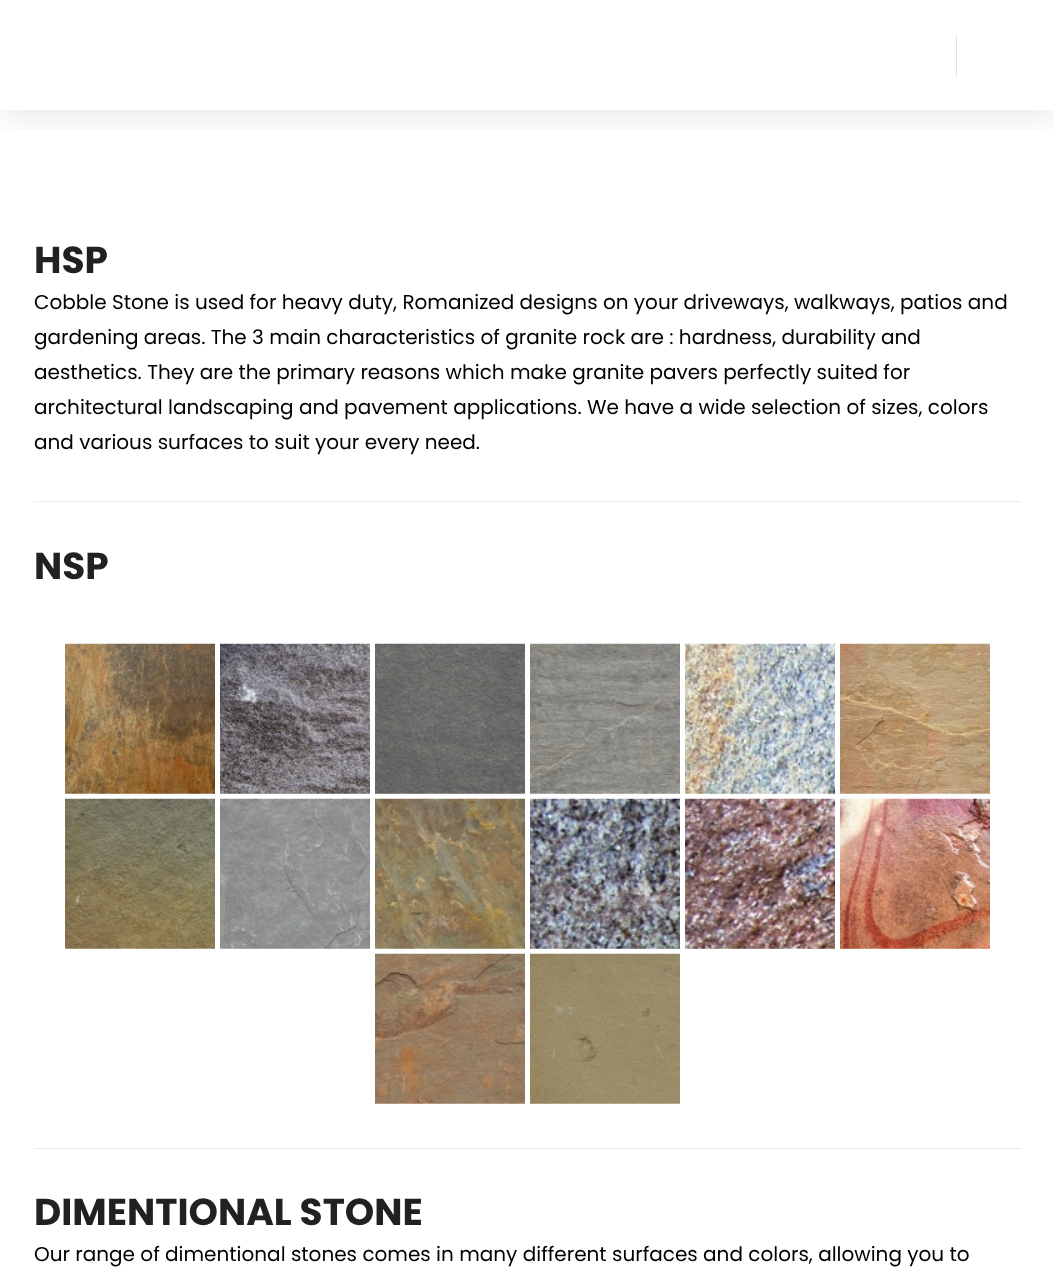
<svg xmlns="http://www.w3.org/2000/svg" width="1054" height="1277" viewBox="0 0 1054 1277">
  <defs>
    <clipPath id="clip1"><rect x="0" y="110" width="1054" height="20"/></clipPath>
    <filter id="blur1" x="-50%" y="-200%" width="200%" height="500%"><feGaussianBlur stdDeviation="15"/></filter>
  </defs>
  <rect width="100%" height="100%" fill="#ffffff"/>
  <g clip-path="url(#clip1)">
    <rect x="0" y="10" width="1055" height="110" fill="#000000" fill-opacity="0.08" filter="url(#blur1)"/>
  </g>
  <rect x="956" y="36" width="1" height="40" fill="#e0e0e0"/>
  <text x="34" y="273" font-family="Poppins" font-size="37.5" font-weight="bold" fill="#212121">HSP</text>
  <text x="34" y="309" font-family="Poppins" font-size="20" fill="#000000">Cobble Stone is used for heavy duty, Romanized designs on your driveways, walkways, patios and</text>
  <text x="34" y="344" font-family="Poppins" font-size="20" fill="#000000">gardening areas. The 3 main characteristics of granite rock are : hardness, durability and</text>
  <text x="34" y="379" font-family="Poppins" font-size="20" fill="#000000">aesthetics. They are the primary reasons which make granite pavers perfectly suited for</text>
  <text x="34" y="414" font-family="Poppins" font-size="20" fill="#000000">architectural landscaping and pavement applications. We have a wide selection of sizes, colors</text>
  <text x="34" y="449" font-family="Poppins" font-size="20" fill="#000000">and various surfaces to suit your every need.</text>
  <rect x="34" y="501" width="987" height="1" fill="#ebebeb"/>
  <text x="34" y="579" font-family="Poppins" font-size="37.5" font-weight="bold" fill="#212121">NSP</text>
  <image x="65" y="643" width="150" height="151" href="img1.png"/>
  <image x="220" y="643" width="150" height="151" href="img2.png"/>
  <image x="375" y="643" width="150" height="151" href="img3.png"/>
  <image x="530" y="643" width="150" height="151" href="img4.png"/>
  <image x="685" y="643" width="150" height="151" href="img5.png"/>
  <image x="840" y="643" width="150" height="151" href="img6.png"/>
  <image x="65" y="798" width="150" height="151" href="img7.png"/>
  <image x="220" y="798" width="150" height="151" href="img8.png"/>
  <image x="375" y="798" width="150" height="151" href="img9.png"/>
  <image x="530" y="798" width="150" height="151" href="img10.png"/>
  <image x="685" y="798" width="150" height="151" href="img11.png"/>
  <image x="840" y="798" width="150" height="151" href="img12.png"/>
  <image x="375" y="953" width="150" height="151" href="img13.png"/>
  <image x="530" y="953" width="150" height="151" href="img14.png"/>
  <rect x="34" y="1148" width="987" height="1" fill="#ebebeb"/>
  <text x="34" y="1225" font-family="Poppins" font-size="37.5" font-weight="bold" fill="#212121">DIMENTIONAL STONE</text>
  <text x="34" y="1261" font-family="Poppins" font-size="20" fill="#000000">Our range of dimentional stones comes in many different surfaces and colors, allowing you to</text>
</svg>
